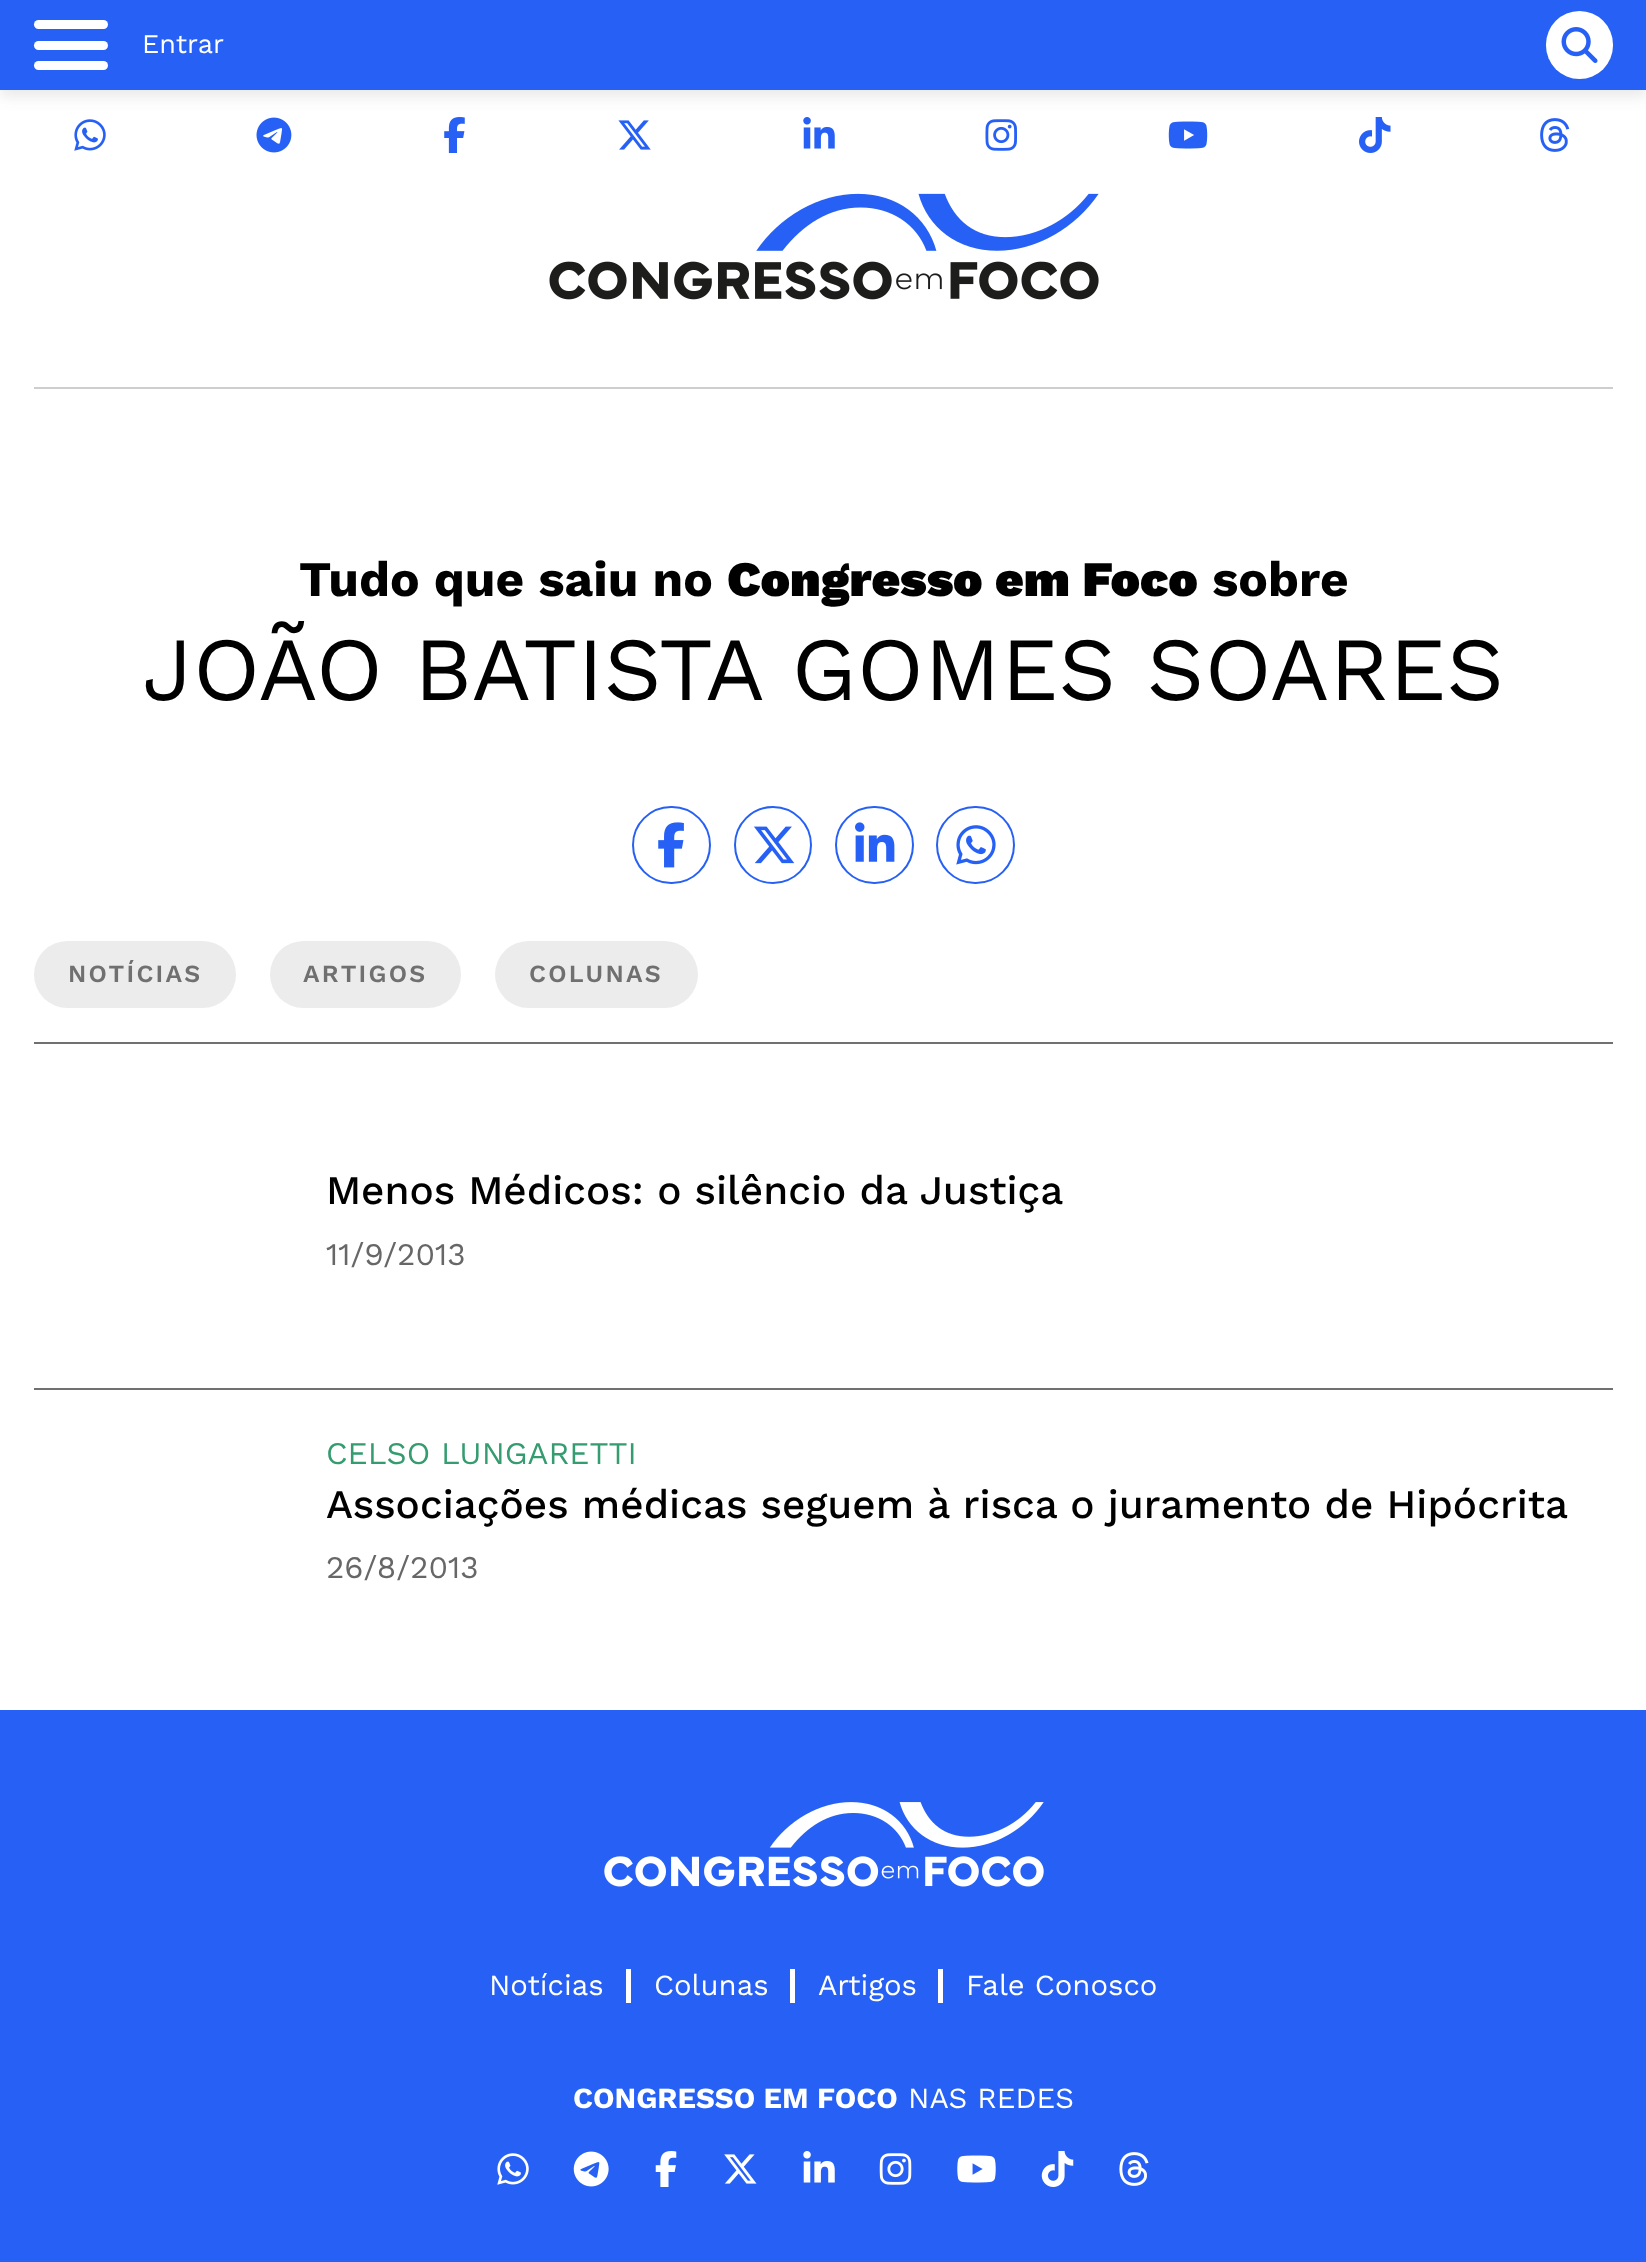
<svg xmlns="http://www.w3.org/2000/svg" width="1646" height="2262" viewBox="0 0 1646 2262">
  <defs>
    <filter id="blur1" x="-50%" y="-200%" width="200%" height="500%"><feGaussianBlur stdDeviation="7"/></filter>
  </defs>
  <rect width="100%" height="100%" fill="#ffffff"/>
  <image x="256" y="117" width="36" height="36" href="img3.png"/>
  <image x="444" y="117" width="21" height="36" href="img4.png"/>
  <image x="803" y="117" width="32" height="32" href="img6.png"/>
  <image x="1359" y="117" width="32" height="36" href="img9.png"/>
  <image x="1540" y="118" width="30" height="34" href="img10.png"/>
  <rect x="0" y="7" width="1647" height="90" fill="#7a7a7a" fill-opacity="0.16" filter="url(#blur1)"/>
  <rect x="0" y="0" width="1646" height="90" fill="#2660f5"/>
  <rect x="34" y="20" width="74" height="9" rx="4.5" fill="#ffffff"/>
  <rect x="34" y="41" width="74" height="9" rx="4.5" fill="#ffffff"/>
  <rect x="34" y="61" width="74" height="9" rx="4.5" fill="#ffffff"/>
  <text x="142" y="53" font-family="Work Sans" font-size="27" fill="#ffffff">Entrar</text>
  <rect x="1546" y="11" width="67" height="68" rx="33.5" fill="#ffffff"/>
  <image x="1561" y="27" width="37" height="36" href="img1.png"/>
  <image x="74" y="119" width="32" height="32" href="img2.png"/>
  <image x="618" y="120" width="33" height="30" href="img5.png"/>
  <image x="985" y="119" width="32" height="32" href="img7.png"/>
  <image x="1168" y="121" width="40" height="28" href="img8.png"/>
  <image x="549" y="193" width="550" height="107" href="img11.png"/>
  <rect x="34" y="387" width="1579" height="2" fill="#cecece"/>
  <text x="299" y="596" font-family="Work Sans" font-size="49.5" font-weight="bold" fill="#000000">Tudo que saiu no</text>
  <text x="727" y="596" font-family="Work Sans" font-size="49.5" font-weight="900" fill="#000000">Congresso em Foco</text>
  <text x="1212" y="596" font-family="Work Sans" font-size="49.5" font-weight="bold" fill="#000000">sobre</text>
  <text x="142" y="700" font-family="Work Sans" font-size="90" fill="#000000">JOÃO BATISTA GOMES SOARES</text>
  <rect x="633" y="807" width="77" height="76" rx="38" fill="none" stroke="#2660f5" stroke-width="2"/>
  <image x="658" y="822" width="26" height="46" href="img12.png"/>
  <circle cx="773" cy="845" r="38" fill="none" stroke="#2660f5" stroke-width="2"/>
  <image x="754" y="826" width="41" height="38" href="img13.png"/>
  <rect x="836" y="807" width="77" height="76" rx="38" fill="none" stroke="#2660f5" stroke-width="2"/>
  <image x="855" y="822" width="40" height="40" href="img14.png"/>
  <rect x="937" y="807" width="77" height="76" rx="38" fill="none" stroke="#2660f5" stroke-width="2"/>
  <image x="956" y="825" width="40" height="40" href="img15.png"/>
  <rect x="34" y="1042" width="1579" height="2" fill="#707070"/>
  <rect x="34" y="941" width="202" height="67" rx="33.5" fill="#ececec"/>
  <text x="68" y="982" font-family="Work Sans" font-size="24.75" font-weight="600" letter-spacing="2.25" fill="#707070">NOTÍCIAS</text>
  <rect x="270" y="941" width="191" height="67" rx="33.5" fill="#ececec"/>
  <text x="303" y="982" font-family="Work Sans" font-size="24.75" font-weight="600" letter-spacing="2.25" fill="#707070">ARTIGOS</text>
  <rect x="495" y="941" width="203" height="67" rx="33.5" fill="#ececec"/>
  <text x="529" y="982" font-family="Work Sans" font-size="24.75" font-weight="600" letter-spacing="2.25" fill="#707070">COLUNAS</text>
  <rect x="34" y="1388" width="1579" height="2" fill="#707070"/>
  <text x="326" y="1204" font-family="Work Sans" font-size="40.5" font-weight="500" fill="#000000">Menos Médicos: o silêncio da Justiça</text>
  <text x="326" y="1265" font-family="Work Sans" font-size="31.5" fill="#676767">11/9/2013</text>
  <text x="326" y="1464" font-family="Work Sans" font-size="31.5" fill="#349c6f">CELSO LUNGARETTI</text>
  <text x="326" y="1518" font-family="Work Sans" font-size="40.5" font-weight="500" fill="#000000">Associações médicas seguem à risca o juramento de Hipócrita</text>
  <text x="326" y="1578" font-family="Work Sans" font-size="31.5" fill="#676767">26/8/2013</text>
  <rect x="0" y="1710" width="1646" height="552" fill="#2660f5"/>
  <image x="604" y="1802" width="440" height="85" href="img16.png"/>
  <rect x="626" y="1969" width="5" height="34" fill="#ffffff"/>
  <text x="489" y="1995" font-family="Work Sans" font-size="29.25" fill="#ffffff">Notícias</text>
  <rect x="790" y="1969" width="5" height="34" fill="#ffffff"/>
  <text x="654" y="1995" font-family="Work Sans" font-size="29.25" fill="#ffffff">Colunas</text>
  <rect x="938" y="1969" width="5" height="34" fill="#ffffff"/>
  <text x="818" y="1995" font-family="Work Sans" font-size="29.25" fill="#ffffff">Artigos</text>
  <text x="966" y="1995" font-family="Work Sans" font-size="29.25" fill="#ffffff">Fale Conosco</text>
  <text x="573" y="2108" font-family="Work Sans" font-size="29.25" font-weight="bold" fill="#ffffff">CONGRESSO EM FOCO</text>
  <text x="908" y="2108" font-family="Work Sans" font-size="29.25" fill="#ffffff">NAS REDES</text>
  <image x="497" y="2153" width="32" height="32" href="img17.png"/>
  <image x="573" y="2151" width="36" height="36" href="img18.png"/>
  <image x="655" y="2151" width="22" height="36" href="img19.png"/>
  <image x="724" y="2154" width="33" height="30" href="img20.png"/>
  <image x="803" y="2151" width="32" height="32" href="img21.png"/>
  <image x="879" y="2153" width="33" height="32" href="img22.png"/>
  <image x="957" y="2155" width="39" height="28" href="img23.png"/>
  <image x="1041" y="2151" width="33" height="36" href="img24.png"/>
  <image x="1119" y="2152" width="30" height="34" href="img25.png"/>
</svg>
